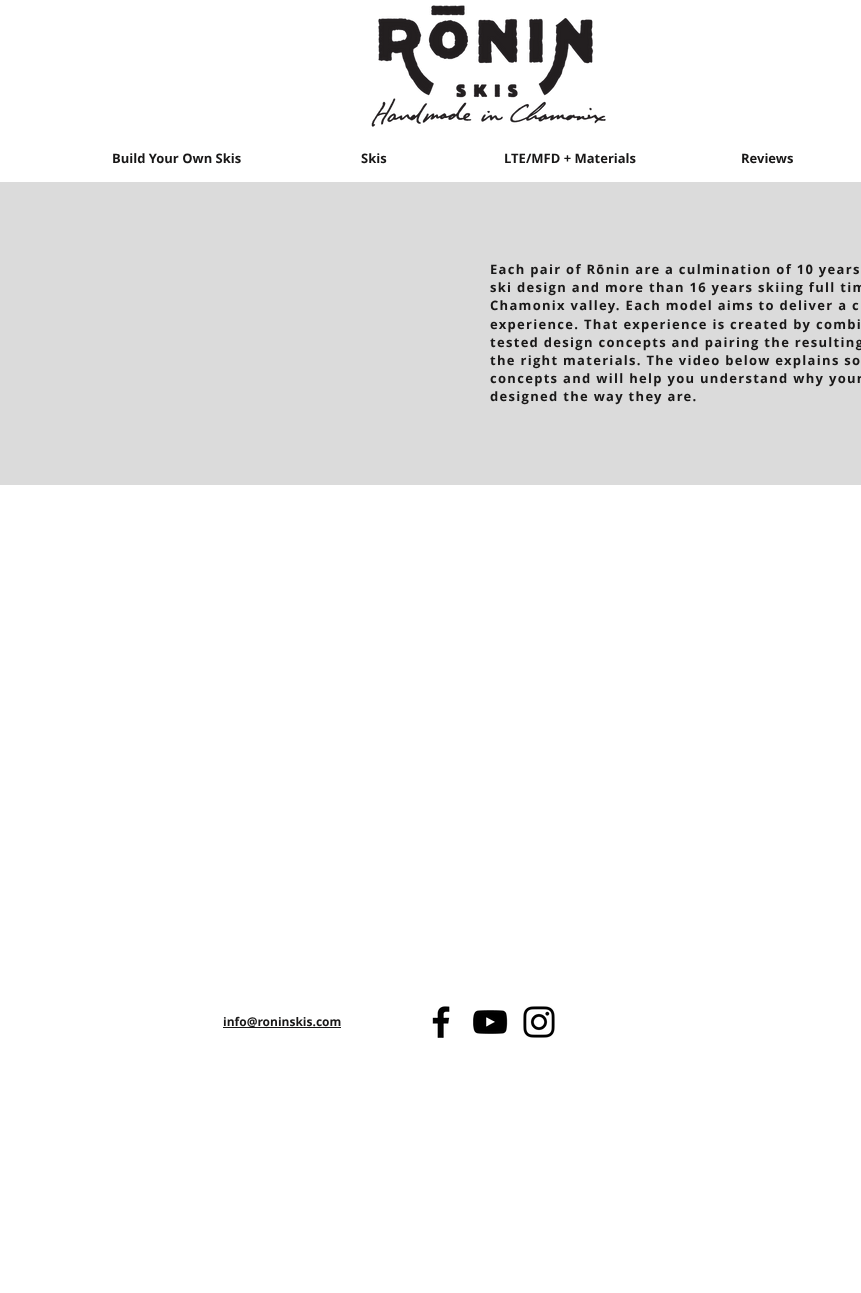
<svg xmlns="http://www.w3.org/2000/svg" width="861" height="1293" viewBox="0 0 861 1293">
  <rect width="100%" height="100%" fill="#ffffff"/>
  <image x="378" y="5" width="216" height="93" href="img1.png"/>
  <image x="371" y="98" width="235" height="29" href="img2.png"/>
  <text x="112" y="163" font-family="Open Sans" font-size="13" font-weight="bold" fill="#181717">Build Your Own Skis</text>
  <text x="361" y="163" font-family="Open Sans" font-size="13" font-weight="bold" fill="#181717">Skis</text>
  <text x="504" y="163" font-family="Open Sans" font-size="13" font-weight="bold" fill="#181717">LTE/MFD + Materials</text>
  <text x="741" y="163" font-family="Open Sans" font-size="13" font-weight="bold" fill="#181717">Reviews</text>
  <rect x="0" y="182" width="861" height="303" fill="#dbdbdb"/>
  <text x="490" y="274" font-family="Open Sans" font-size="13" font-weight="bold" letter-spacing="1.3" fill="#181717">Each pair of Rōnin are a culmination of 10 years</text>
  <text x="490" y="292" font-family="Open Sans" font-size="13" font-weight="bold" letter-spacing="1.3" fill="#181717">ski design and more than 16 years skiing full tim</text>
  <text x="490" y="310" font-family="Open Sans" font-size="13" font-weight="bold" letter-spacing="1.3" fill="#181717">Chamonix valley. Each model aims to deliver a c</text>
  <text x="490" y="329" font-family="Open Sans" font-size="13" font-weight="bold" letter-spacing="1.3" fill="#181717">experience. That experience is created by combi</text>
  <text x="490" y="347" font-family="Open Sans" font-size="13" font-weight="bold" letter-spacing="1.3" fill="#181717">tested design concepts and pairing the resulting</text>
  <text x="490" y="365" font-family="Open Sans" font-size="13" font-weight="bold" letter-spacing="1.3" fill="#181717">the right materials. The video below explains so</text>
  <text x="490" y="383" font-family="Open Sans" font-size="13" font-weight="bold" letter-spacing="1.3" fill="#181717">concepts and will help you understand why your</text>
  <text x="490" y="401" font-family="Open Sans" font-size="13" font-weight="bold" letter-spacing="1.3" fill="#181717">designed the way they are.</text>
  <text x="223" y="1026" font-family="Open Sans" font-size="12" font-weight="bold" fill="#181717">info@roninskis.com</text>
  <rect x="223" y="1027" width="118" height="1" fill="#181717"/>
  <image x="432" y="1006" width="18" height="32" href="img3.png"/>
  <image x="473" y="1010" width="35" height="24" href="img4.png"/>
  <image x="523" y="1006" width="32" height="32" href="img5.png"/>
</svg>
